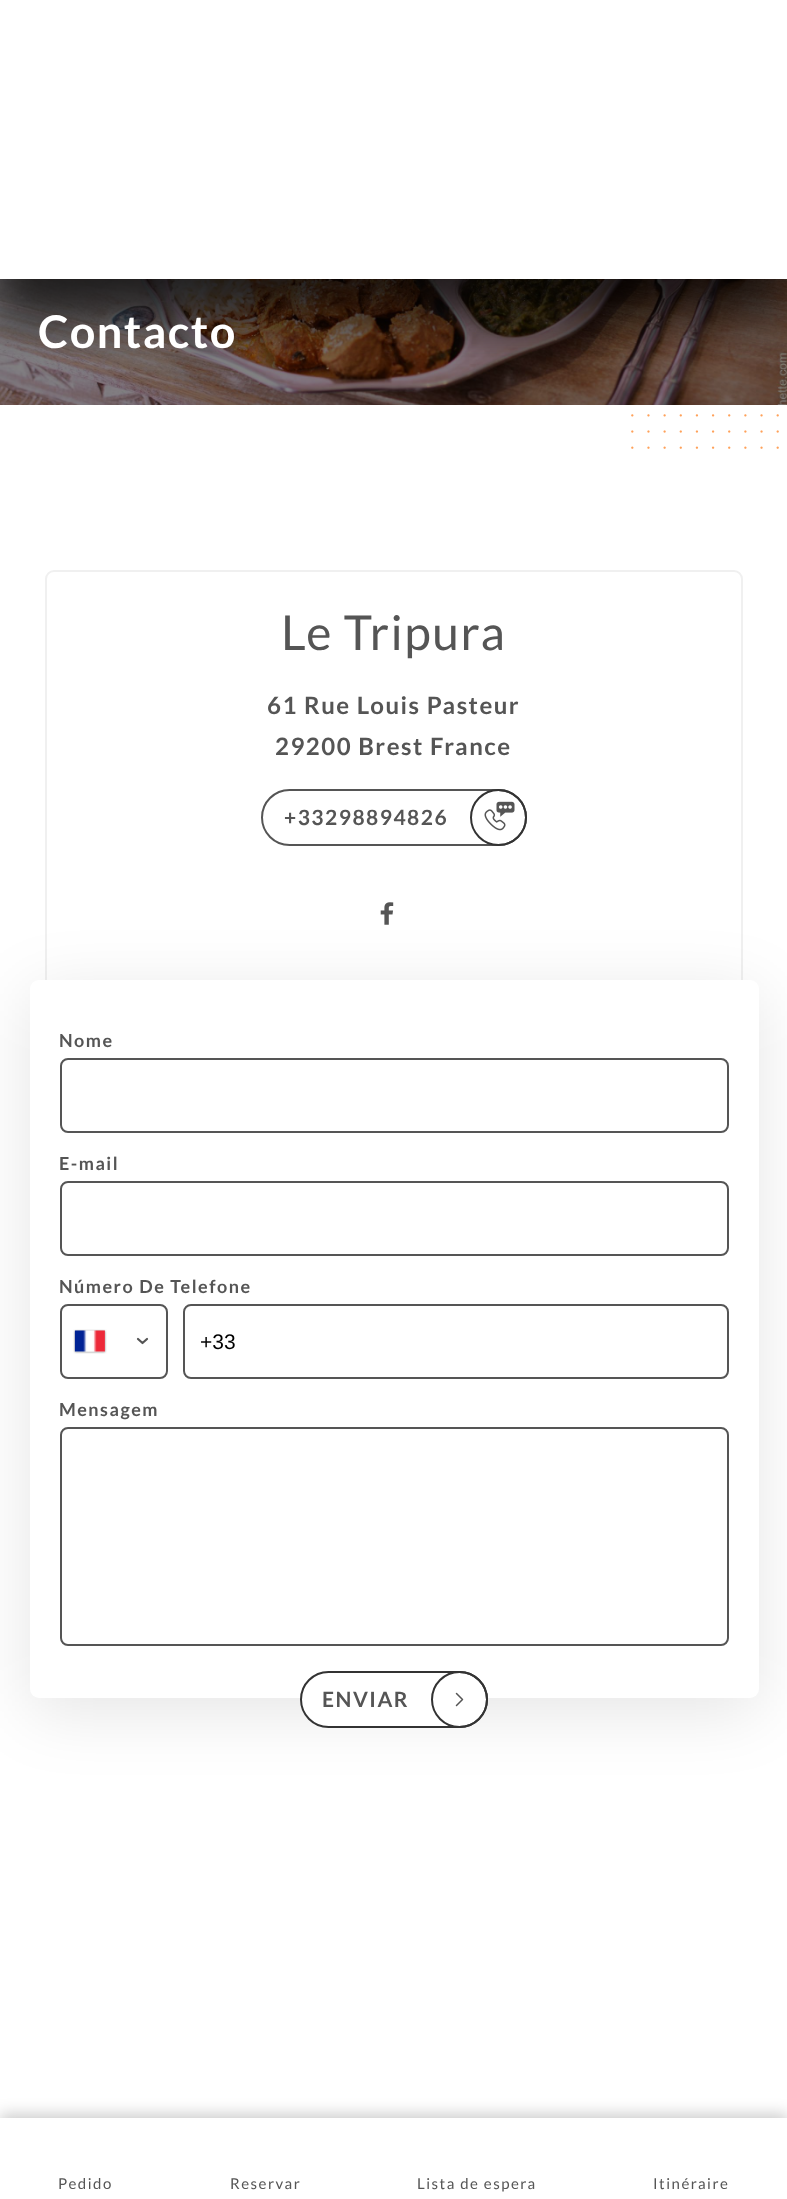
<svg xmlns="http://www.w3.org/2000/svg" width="787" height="2199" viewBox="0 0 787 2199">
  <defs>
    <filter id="blur1" x="-50%" y="-200%" width="200%" height="500%"><feGaussianBlur stdDeviation="25.5"/></filter>
    <clipPath id="clip1"><rect x="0" y="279" width="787" height="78"/></clipPath>
    <filter id="blur2" x="-50%" y="-200%" width="200%" height="500%"><feGaussianBlur stdDeviation="33"/></filter>
    <filter id="blur3" x="-50%" y="-200%" width="200%" height="500%"><feGaussianBlur stdDeviation="1"/></filter>
    <filter id="blur4" x="-50%" y="-200%" width="200%" height="500%"><feGaussianBlur stdDeviation="7.5"/></filter>
  </defs>
  <rect width="100%" height="100%" fill="#ffffff"/>
  <image x="0" y="279" width="787" height="126" href="img1.png"/>
  <rect x="0" y="-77" width="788" height="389" fill="#000000" fill-opacity="0.5" filter="url(#blur1)"/>
  <rect x="0" y="0" width="787" height="279" fill="#ffffff"/>
  <g clip-path="url(#clip1)">
    <rect x="0" y="-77" width="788" height="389" fill="#000000" fill-opacity="0.5" filter="url(#blur1)"/>
  </g>
  <text x="38" y="348" font-family="Lato" font-size="45" font-weight="bold" letter-spacing="1.5" fill="#ffffff">Contacto</text>
  <image x="631" y="414" width="148" height="35" href="img2.png"/>
  <rect x="46" y="571" width="696" height="1104" rx="8" fill="none" stroke="#f0f0f0" stroke-width="2"/>
  <text x="281" y="650" font-family="Lato" font-size="48" letter-spacing="1.5" fill="#555555">Le Tripura</text>
  <text x="267" y="714" font-family="Lato" font-size="24" font-weight="bold" letter-spacing="1.5" fill="#555555">61 Rue Louis Pasteur</text>
  <text x="275" y="755" font-family="Lato" font-size="24" font-weight="bold" letter-spacing="1.5" fill="#555555">29200 Brest France</text>
  <rect x="262" y="790" width="264" height="55" rx="27.5" fill="none" stroke="#555555" stroke-width="2"/>
  <text x="284" y="825" font-family="Lato" font-size="21" font-weight="bold" letter-spacing="1.5" fill="#555555">+33298894826</text>
  <circle cx="498.5" cy="817.5" r="27.5" fill="none" stroke="#333333" stroke-width="2"/>
  <image x="484" y="801" width="31" height="30" href="img3.png"/>
  <image x="380" y="902" width="14" height="23" href="img4.png"/>
  <rect x="30" y="993" width="729" height="719" rx="9" fill="#000000" fill-opacity="0.1" filter="url(#blur2)"/>
  <rect x="30" y="980" width="729" height="718" rx="9" fill="#ffffff"/>
  <text x="59" y="1047" font-family="Lato" font-size="18" font-weight="bold" letter-spacing="1.5" fill="#555555">Nome</text>
  <rect x="61" y="1059" width="667" height="73" rx="7" fill="none" stroke="#555555" stroke-width="2"/>
  <text x="59" y="1170" font-family="Lato" font-size="18" font-weight="bold" letter-spacing="1.5" fill="#555555">E-mail</text>
  <rect x="61" y="1182" width="667" height="73" rx="7" fill="none" stroke="#555555" stroke-width="2"/>
  <text x="59" y="1293" font-family="Lato" font-size="18" font-weight="bold" letter-spacing="1.5" fill="#555555">Número De Telefone</text>
  <rect x="61" y="1305" width="106" height="73" rx="7" fill="none" stroke="#555555" stroke-width="2"/>
  <rect x="75" y="1331" width="30" height="21" fill="#888888" filter="url(#blur3)"/>
  <rect x="75" y="1331" width="30" height="21" fill="#dbdbdb"/>
  <image x="74" y="1330" width="31" height="22" href="img5.png"/>
  <path d="M138 1339L142.5 1343L147 1339" fill="none" stroke="#555555" stroke-width="2.2" stroke-linecap="round" stroke-linejoin="round"/>
  <rect x="184" y="1305" width="544" height="73" rx="7" fill="none" stroke="#555555" stroke-width="2"/>
  <text x="200" y="1349" font-family="Liberation Sans" font-size="21" fill="#000000">+33</text>
  <text x="59" y="1416" font-family="Lato" font-size="18" font-weight="bold" letter-spacing="1.5" fill="#555555">Mensagem</text>
  <rect x="61" y="1428" width="667" height="217" rx="7" fill="none" stroke="#555555" stroke-width="2"/>
  <rect x="301" y="1672" width="186" height="55" rx="27.5" fill="#ffffff" stroke="#333333" stroke-width="2"/>
  <text x="322" y="1707" font-family="Lato" font-size="21" font-weight="bold" letter-spacing="1.5" fill="#555555">ENVIAR</text>
  <circle cx="459.5" cy="1699.5" r="27.5" fill="none" stroke="#333333" stroke-width="2"/>
  <path d="M456.5 1705.5L462.5 1699.5L456.5 1693.5" fill="none" stroke="#555555" stroke-width="1.5" stroke-linecap="round" stroke-linejoin="round"/>
  <rect x="0" y="2114" width="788" height="81" fill="#000000" fill-opacity="0.2" filter="url(#blur4)"/>
  <rect x="0" y="2118" width="787" height="81" fill="#ffffff"/>
  <text x="58" y="2189" font-family="Lato" font-size="15" letter-spacing="1.5" fill="#555555">Pedido</text>
  <text x="230" y="2189" font-family="Lato" font-size="15" letter-spacing="1.5" fill="#555555">Reservar</text>
  <text x="417" y="2189" font-family="Lato" font-size="15" letter-spacing="1.5" fill="#555555">Lista de espera</text>
  <text x="653" y="2189" font-family="Lato" font-size="15" letter-spacing="1.5" fill="#555555">Itinéraire</text>
</svg>
